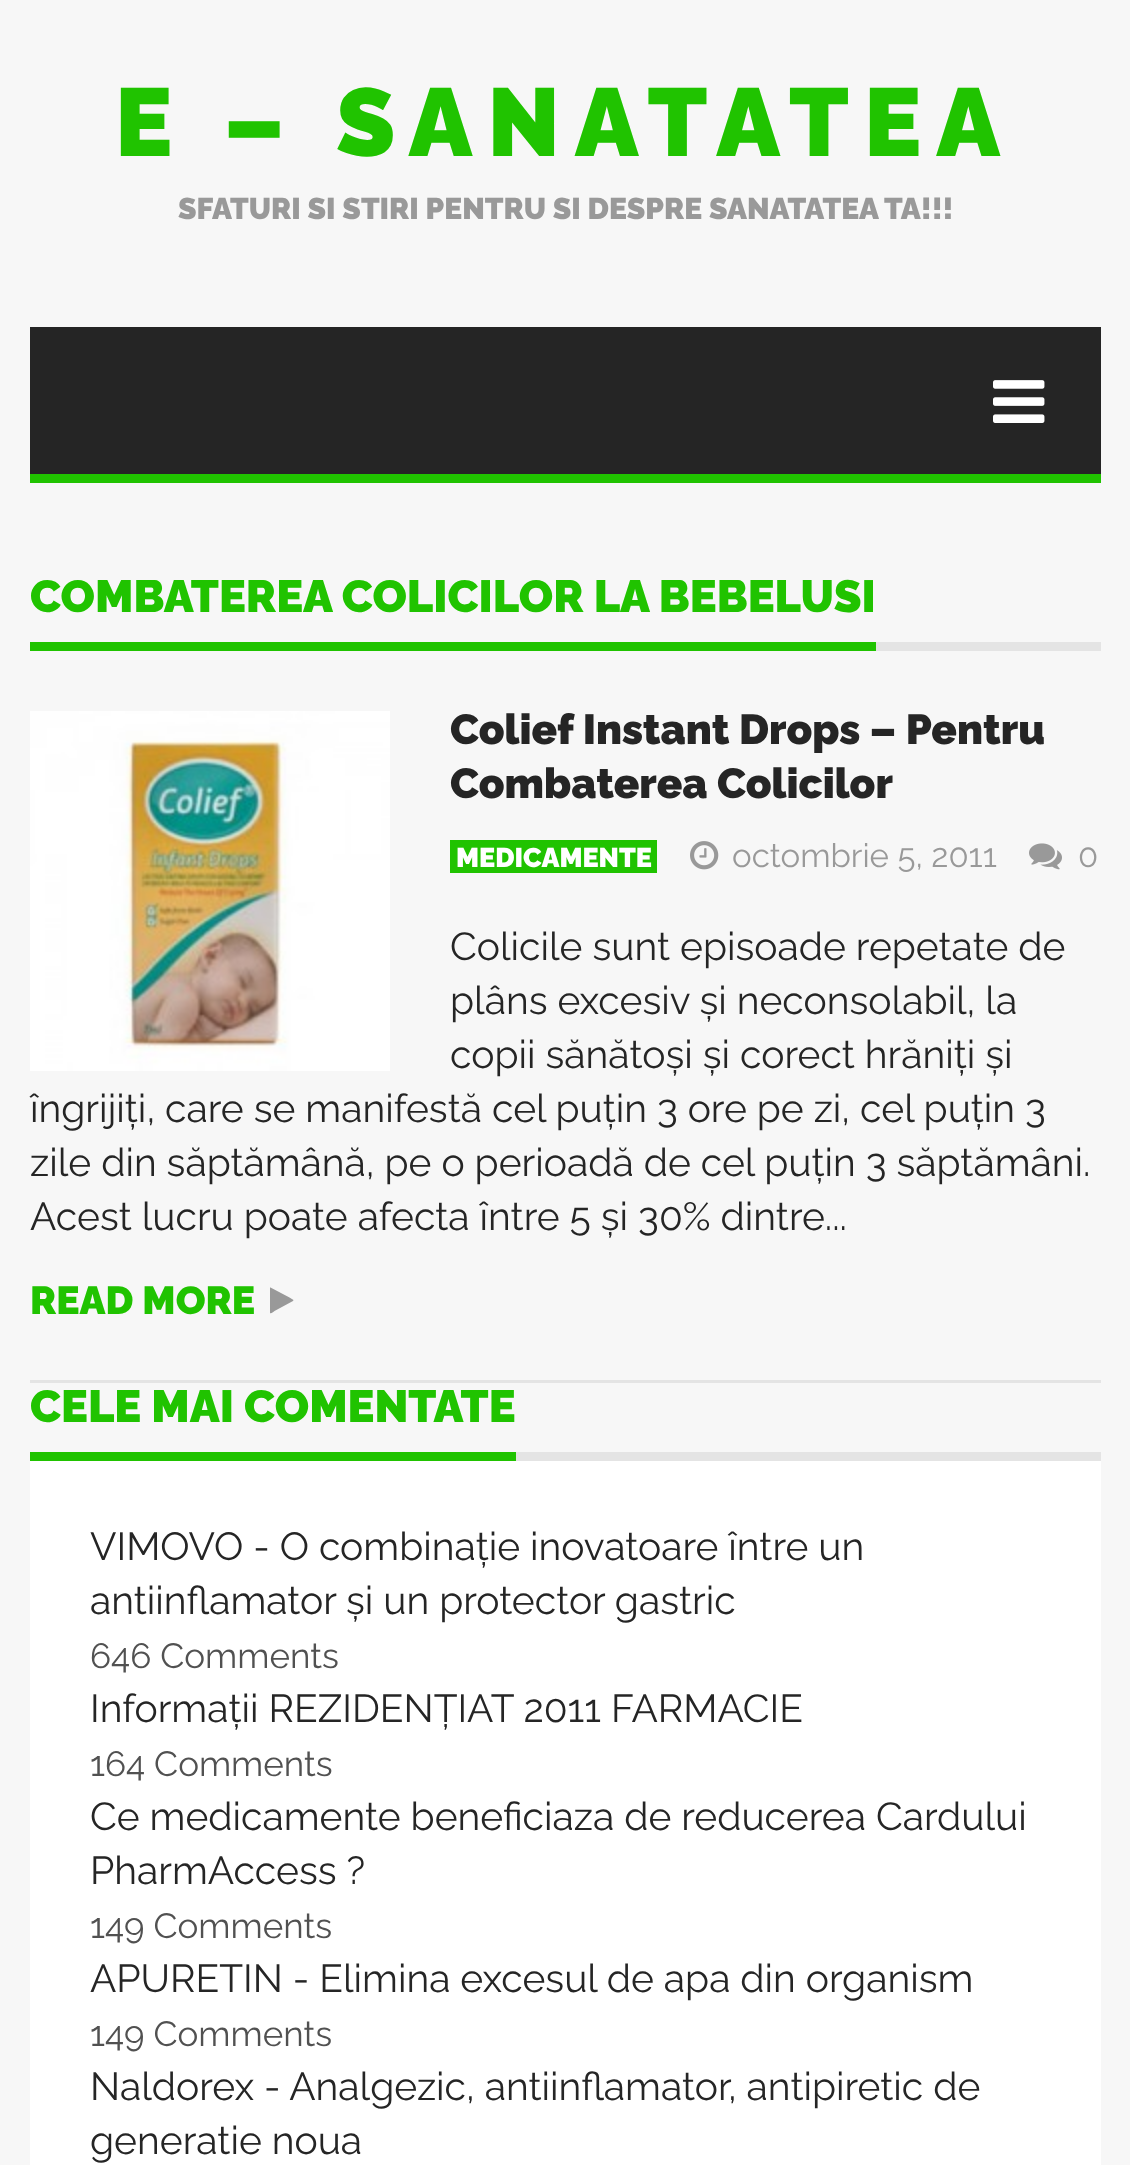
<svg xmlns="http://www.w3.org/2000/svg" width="1130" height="2165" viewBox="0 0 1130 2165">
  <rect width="100%" height="100%" fill="#f7f7f7"/>
  <text x="115" y="156" font-family="Raleway" font-size="96" font-weight="900" letter-spacing="15" fill="#20c300">E – SANATATEA</text>
  <text x="178" y="219" font-family="Raleway" font-size="30" font-weight="900" fill="#999999">SFATURI SI STIRI PENTRU SI DESPRE SANATATEA TA!!!</text>
  <rect x="30" y="474" width="1071" height="9" fill="#20c300"/>
  <rect x="30" y="327" width="1071" height="147" fill="#252525"/>
  <image x="993" y="380" width="52" height="43" href="img1.png"/>
  <rect x="876" y="642" width="225" height="9" fill="#e4e4e4"/>
  <rect x="30" y="642" width="846" height="9" fill="#20c300"/>
  <text x="30" y="612" font-family="Raleway" font-size="45" font-weight="900" fill="#20c300">COMBATEREA COLICILOR LA BEBELUSI</text>
  <rect x="30" y="1380" width="1071" height="3" fill="#e4e4e4"/>
  <image x="30" y="711" width="360" height="360" href="img2.png"/>
  <text x="450" y="744" font-family="Raleway" font-size="42" font-weight="900" fill="#252525">Colief Instant Drops – Pentru</text>
  <text x="450" y="798" font-family="Raleway" font-size="42" font-weight="900" fill="#252525">Combaterea Colicilor</text>
  <rect x="450" y="840" width="207" height="33" fill="#20c300"/>
  <text x="456" y="867" font-family="Raleway" font-size="27" font-weight="900" fill="#ffffff">MEDICAMENTE</text>
  <image x="690" y="841" width="29" height="29" href="img3.png"/>
  <text x="732" y="867" font-family="Raleway" font-size="33" fill="#999999">octombrie 5, 2011</text>
  <image x="1029" y="843" width="33" height="27" href="img4.png"/>
  <text x="1078" y="867" font-family="Raleway" font-size="33" fill="#999999">0</text>
  <text x="450" y="960" font-family="Raleway" font-size="39" fill="#252525">Colicile sunt episoade repetate de</text>
  <text x="450" y="1014" font-family="Raleway" font-size="39" fill="#252525">plâns excesiv și neconsolabil, la</text>
  <text x="450" y="1068" font-family="Raleway" font-size="39" fill="#252525">copii sănătoși și corect hrăniți și</text>
  <text x="30" y="1122" font-family="Raleway" font-size="39" fill="#252525">îngrijiți, care se manifestă cel puțin 3 ore pe zi, cel puțin 3</text>
  <text x="30" y="1176" font-family="Raleway" font-size="39" fill="#252525">zile din săptămână, pe o perioadă de cel puțin 3 săptămâni.</text>
  <text x="30" y="1230" font-family="Raleway" font-size="39" fill="#252525">Acest lucru poate afecta între 5 și 30% dintre...</text>
  <text x="30" y="1314" font-family="Raleway" font-size="39" font-weight="900" fill="#20c300">READ MORE</text>
  <path d="M293 1301L274.5 1311C274 1311.5 271 1314 270 1313V1287.5H270.5L289.5 1297.5L293.5 1300Z" fill="#999999"/>
  <rect x="516" y="1452" width="585" height="9" fill="#e4e4e4"/>
  <rect x="30" y="1452" width="486" height="9" fill="#20c300"/>
  <text x="30" y="1422" font-family="Raleway" font-size="45" font-weight="900" fill="#20c300">CELE MAI COMENTATE</text>
  <rect x="30" y="1461" width="1071" height="704" fill="#ffffff"/>
  <text x="90" y="1560" font-family="Raleway" font-size="39" fill="#252525">VIMOVO - O combinație inovatoare între un</text>
  <text x="90" y="1614" font-family="Raleway" font-size="39" fill="#252525">antiinflamator și un protector gastric</text>
  <text x="90" y="1668" font-family="Raleway" font-size="35" fill="#515151">646 Comments</text>
  <text x="90" y="1722" font-family="Raleway" font-size="39" fill="#252525">Informații REZIDENȚIAT 2011 FARMACIE</text>
  <text x="90" y="1776" font-family="Raleway" font-size="35" fill="#515151">164 Comments</text>
  <text x="90" y="1830" font-family="Raleway" font-size="39" fill="#252525">Ce medicamente beneficiaza de reducerea Cardului</text>
  <text x="90" y="1884" font-family="Raleway" font-size="39" fill="#252525">PharmAccess ?</text>
  <text x="90" y="1938" font-family="Raleway" font-size="35" fill="#515151">149 Comments</text>
  <text x="90" y="1992" font-family="Raleway" font-size="39" fill="#252525">APURETIN - Elimina excesul de apa din organism</text>
  <text x="90" y="2046" font-family="Raleway" font-size="35" fill="#515151">149 Comments</text>
  <text x="90" y="2100" font-family="Raleway" font-size="39" fill="#252525">Naldorex - Analgezic, antiinflamator, antipiretic de</text>
  <text x="90" y="2154" font-family="Raleway" font-size="39" fill="#252525">generatie noua</text>
</svg>
